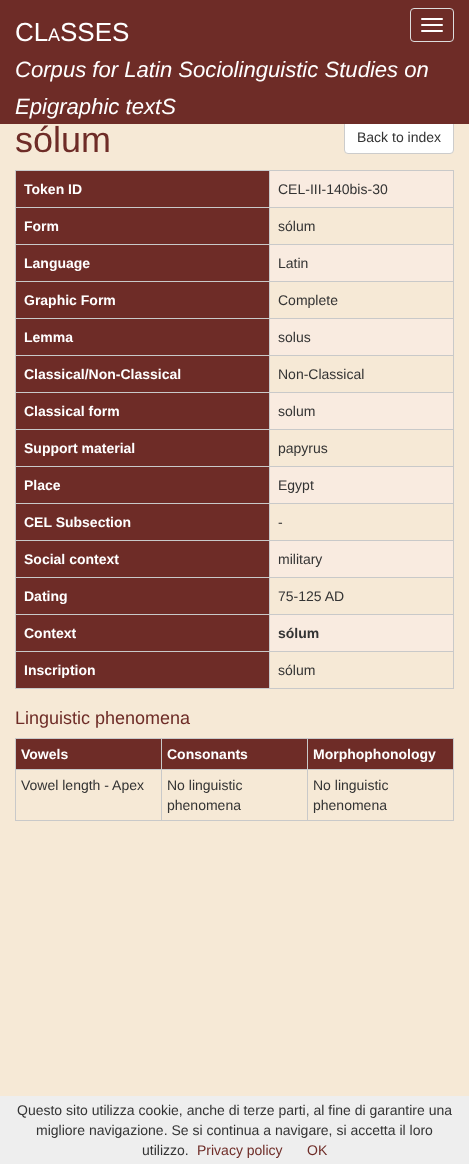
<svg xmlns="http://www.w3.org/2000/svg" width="469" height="1164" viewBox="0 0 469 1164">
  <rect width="100%" height="100%" fill="#f6e9d6"/>
  <rect x="344.5" y="120.5" width="109" height="33" rx="3.5" fill="#ffffff" stroke="#cccccc"/>
  <rect x="0" y="0" width="469" height="124" fill="#6e2c27"/>
  <text x="15" y="41" font-family="Liberation Sans" font-size="26" fill="#ffffff">CL</text>
  <text x="48" y="41" font-family="Liberation Sans" font-size="18" fill="#ffffff">A</text>
  <text x="60" y="41" font-family="Liberation Sans" font-size="26" fill="#ffffff">SSES</text>
  <rect x="410.5" y="8.5" width="43" height="33" rx="3.5" fill="none" stroke="#dddddd"/>
  <rect x="421" y="18" width="22" height="2" rx="1" fill="#ffffff"/>
  <rect x="421" y="24" width="22" height="2" rx="1" fill="#ffffff"/>
  <rect x="421" y="30" width="22" height="2" rx="1" fill="#ffffff"/>
  <text x="15" y="77" font-family="Liberation Sans" font-size="22.1" font-style="italic" fill="#ffffff">Corpus for Latin Sociolinguistic Studies on</text>
  <text x="15" y="114" font-family="Liberation Sans" font-size="22.1" font-style="italic" fill="#ffffff">Epigraphic textS</text>
  <text x="15" y="152" font-family="Liberation Sans" font-size="36" fill="#6e2c27">sólum</text>
  <text x="357" y="142" font-family="Liberation Sans" font-size="14" fill="#333333">Back to index</text>
  <rect x="15" y="170" width="439" height="1" fill="#c9c9c9"/>
  <rect x="453" y="170" width="1" height="519" fill="#c9c9c9"/>
  <rect x="15" y="688" width="439" height="1" fill="#c9c9c9"/>
  <rect x="15" y="170" width="1" height="519" fill="#c9c9c9"/>
  <rect x="270" y="171" width="183" height="36" fill="#f9ebe0"/>
  <rect x="16" y="171" width="253" height="36" fill="#6e2c27"/>
  <text x="24" y="194" font-family="Liberation Sans" font-size="14" font-weight="bold" fill="#ffffff">Token ID</text>
  <rect x="269" y="207" width="185" height="1" fill="#c9c9c9"/>
  <rect x="269" y="244" width="185" height="1" fill="#c9c9c9"/>
  <rect x="269" y="281" width="185" height="1" fill="#c9c9c9"/>
  <rect x="269" y="318" width="185" height="1" fill="#c9c9c9"/>
  <rect x="269" y="355" width="185" height="1" fill="#c9c9c9"/>
  <rect x="269" y="392" width="185" height="1" fill="#c9c9c9"/>
  <rect x="269" y="429" width="185" height="1" fill="#c9c9c9"/>
  <rect x="269" y="466" width="185" height="1" fill="#c9c9c9"/>
  <rect x="269" y="503" width="185" height="1" fill="#c9c9c9"/>
  <rect x="269" y="540" width="185" height="1" fill="#c9c9c9"/>
  <rect x="269" y="577" width="185" height="1" fill="#c9c9c9"/>
  <rect x="269" y="614" width="185" height="1" fill="#c9c9c9"/>
  <rect x="269" y="651" width="185" height="1" fill="#c9c9c9"/>
  <rect x="269" y="651" width="1" height="38" fill="#c9c9c9"/>
  <rect x="15" y="651" width="255" height="1" fill="#c9c9c9"/>
  <rect x="269" y="614" width="1" height="38" fill="#c9c9c9"/>
  <rect x="15" y="614" width="255" height="1" fill="#c9c9c9"/>
  <rect x="269" y="577" width="1" height="38" fill="#c9c9c9"/>
  <rect x="15" y="577" width="255" height="1" fill="#c9c9c9"/>
  <rect x="269" y="540" width="1" height="38" fill="#c9c9c9"/>
  <rect x="15" y="540" width="255" height="1" fill="#c9c9c9"/>
  <rect x="269" y="503" width="1" height="38" fill="#c9c9c9"/>
  <rect x="15" y="503" width="255" height="1" fill="#c9c9c9"/>
  <rect x="269" y="466" width="1" height="38" fill="#c9c9c9"/>
  <rect x="15" y="466" width="255" height="1" fill="#c9c9c9"/>
  <rect x="269" y="429" width="1" height="38" fill="#c9c9c9"/>
  <rect x="15" y="429" width="255" height="1" fill="#c9c9c9"/>
  <rect x="269" y="392" width="1" height="38" fill="#c9c9c9"/>
  <rect x="15" y="392" width="255" height="1" fill="#c9c9c9"/>
  <rect x="269" y="355" width="1" height="38" fill="#c9c9c9"/>
  <rect x="15" y="355" width="255" height="1" fill="#c9c9c9"/>
  <rect x="269" y="318" width="1" height="38" fill="#c9c9c9"/>
  <rect x="15" y="318" width="255" height="1" fill="#c9c9c9"/>
  <rect x="269" y="281" width="1" height="38" fill="#c9c9c9"/>
  <rect x="15" y="281" width="255" height="1" fill="#c9c9c9"/>
  <rect x="269" y="244" width="1" height="38" fill="#c9c9c9"/>
  <rect x="15" y="244" width="255" height="1" fill="#c9c9c9"/>
  <rect x="269" y="207" width="1" height="38" fill="#c9c9c9"/>
  <rect x="15" y="207" width="255" height="1" fill="#c9c9c9"/>
  <rect x="269" y="170" width="1" height="38" fill="#c9c9c9"/>
  <text x="278" y="194" font-family="Liberation Sans" font-size="14" fill="#333333">CEL-III-140bis-30</text>
  <rect x="16" y="208" width="253" height="36" fill="#6e2c27"/>
  <text x="24" y="231" font-family="Liberation Sans" font-size="14" font-weight="bold" fill="#ffffff">Form</text>
  <text x="278" y="231" font-family="Liberation Sans" font-size="14" fill="#333333">sólum</text>
  <rect x="270" y="245" width="183" height="36" fill="#f9ebe0"/>
  <rect x="16" y="245" width="253" height="36" fill="#6e2c27"/>
  <text x="24" y="268" font-family="Liberation Sans" font-size="14" font-weight="bold" fill="#ffffff">Language</text>
  <text x="278" y="268" font-family="Liberation Sans" font-size="14" fill="#333333">Latin</text>
  <rect x="16" y="282" width="253" height="36" fill="#6e2c27"/>
  <text x="24" y="305" font-family="Liberation Sans" font-size="14" font-weight="bold" fill="#ffffff">Graphic Form</text>
  <text x="278" y="305" font-family="Liberation Sans" font-size="14" fill="#333333">Complete</text>
  <rect x="270" y="319" width="183" height="36" fill="#f9ebe0"/>
  <rect x="16" y="319" width="253" height="36" fill="#6e2c27"/>
  <text x="24" y="342" font-family="Liberation Sans" font-size="14" font-weight="bold" fill="#ffffff">Lemma</text>
  <text x="278" y="342" font-family="Liberation Sans" font-size="14" fill="#333333">solus</text>
  <rect x="16" y="356" width="253" height="36" fill="#6e2c27"/>
  <text x="24" y="379" font-family="Liberation Sans" font-size="14" font-weight="bold" fill="#ffffff">Classical/Non-Classical</text>
  <text x="278" y="379" font-family="Liberation Sans" font-size="14" fill="#333333">Non-Classical</text>
  <rect x="270" y="393" width="183" height="36" fill="#f9ebe0"/>
  <rect x="16" y="393" width="253" height="36" fill="#6e2c27"/>
  <text x="24" y="416" font-family="Liberation Sans" font-size="14" font-weight="bold" fill="#ffffff">Classical form</text>
  <text x="278" y="416" font-family="Liberation Sans" font-size="14" fill="#333333">solum</text>
  <rect x="16" y="430" width="253" height="36" fill="#6e2c27"/>
  <text x="24" y="453" font-family="Liberation Sans" font-size="14" font-weight="bold" fill="#ffffff">Support material</text>
  <text x="278" y="453" font-family="Liberation Sans" font-size="14" fill="#333333">papyrus</text>
  <rect x="270" y="467" width="183" height="36" fill="#f9ebe0"/>
  <rect x="16" y="467" width="253" height="36" fill="#6e2c27"/>
  <text x="24" y="490" font-family="Liberation Sans" font-size="14" font-weight="bold" fill="#ffffff">Place</text>
  <text x="278" y="490" font-family="Liberation Sans" font-size="14" fill="#333333">Egypt</text>
  <rect x="16" y="504" width="253" height="36" fill="#6e2c27"/>
  <text x="24" y="527" font-family="Liberation Sans" font-size="14" font-weight="bold" fill="#ffffff">CEL Subsection</text>
  <text x="278" y="527" font-family="Liberation Sans" font-size="14" fill="#333333">-</text>
  <rect x="270" y="541" width="183" height="36" fill="#f9ebe0"/>
  <rect x="16" y="541" width="253" height="36" fill="#6e2c27"/>
  <text x="24" y="564" font-family="Liberation Sans" font-size="14" font-weight="bold" fill="#ffffff">Social context</text>
  <text x="278" y="564" font-family="Liberation Sans" font-size="14" fill="#333333">military</text>
  <rect x="16" y="578" width="253" height="36" fill="#6e2c27"/>
  <text x="24" y="601" font-family="Liberation Sans" font-size="14" font-weight="bold" fill="#ffffff">Dating</text>
  <text x="278" y="601" font-family="Liberation Sans" font-size="14" fill="#333333">75-125 AD</text>
  <rect x="270" y="615" width="183" height="36" fill="#f9ebe0"/>
  <rect x="16" y="615" width="253" height="36" fill="#6e2c27"/>
  <text x="24" y="638" font-family="Liberation Sans" font-size="14" font-weight="bold" fill="#ffffff">Context</text>
  <text x="278" y="638" font-family="Liberation Sans" font-size="14" font-weight="bold" fill="#333333">sólum</text>
  <rect x="16" y="652" width="253" height="36" fill="#6e2c27"/>
  <text x="24" y="675" font-family="Liberation Sans" font-size="14" font-weight="bold" fill="#ffffff">Inscription</text>
  <text x="278" y="675" font-family="Liberation Sans" font-size="14" fill="#333333">sólum</text>
  <text x="15" y="724" font-family="Liberation Sans" font-size="18" fill="#6e2c27">Linguistic phenomena</text>
  <rect x="15" y="738" width="439" height="1" fill="#c9c9c9"/>
  <rect x="453" y="738" width="1" height="83" fill="#c9c9c9"/>
  <rect x="15" y="820" width="439" height="1" fill="#c9c9c9"/>
  <rect x="15" y="738" width="1" height="83" fill="#c9c9c9"/>
  <rect x="16" y="739" width="145" height="30" fill="#6e2c27"/>
  <text x="21" y="759" font-family="Liberation Sans" font-size="14" font-weight="bold" fill="#ffffff">Vowels</text>
  <rect x="162" y="739" width="145" height="30" fill="#6e2c27"/>
  <rect x="307" y="769" width="147" height="1" fill="#c9c9c9"/>
  <rect x="307" y="769" width="1" height="52" fill="#c9c9c9"/>
  <rect x="161" y="769" width="147" height="1" fill="#c9c9c9"/>
  <rect x="161" y="769" width="1" height="52" fill="#c9c9c9"/>
  <rect x="15" y="769" width="147" height="1" fill="#c9c9c9"/>
  <rect x="161" y="738" width="1" height="32" fill="#c9c9c9"/>
  <text x="167" y="759" font-family="Liberation Sans" font-size="14" font-weight="bold" fill="#ffffff">Consonants</text>
  <rect x="308" y="739" width="145" height="30" fill="#6e2c27"/>
  <rect x="307" y="738" width="1" height="32" fill="#c9c9c9"/>
  <text x="313" y="759" font-family="Liberation Sans" font-size="14" font-weight="bold" fill="#ffffff">Morphophonology</text>
  <text x="21" y="790" font-family="Liberation Sans" font-size="14" fill="#333333">Vowel length - Apex</text>
  <text x="167" y="790" font-family="Liberation Sans" font-size="14" fill="#333333">No linguistic</text>
  <text x="167" y="810" font-family="Liberation Sans" font-size="14" fill="#333333">phenomena</text>
  <text x="313" y="790" font-family="Liberation Sans" font-size="14" fill="#333333">No linguistic</text>
  <text x="313" y="810" font-family="Liberation Sans" font-size="14" fill="#333333">phenomena</text>
  <rect x="0" y="1096" width="469" height="68" fill="#eeeeee"/>
  <text x="17" y="1115" font-family="Liberation Sans" font-size="14" fill="#333333">Questo sito utilizza cookie, anche di terze parti, al fine di garantire una</text>
  <text x="36" y="1135" font-family="Liberation Sans" font-size="14" fill="#333333">migliore navigazione. Se si continua a navigare, si accetta il loro</text>
  <text x="142" y="1155" font-family="Liberation Sans" font-size="14" fill="#333333">utilizzo.</text>
  <text x="197" y="1155" font-family="Liberation Sans" font-size="14" fill="#6e2c27">Privacy policy</text>
  <text x="307" y="1155" font-family="Liberation Sans" font-size="14" fill="#6e2c27">OK</text>
</svg>
